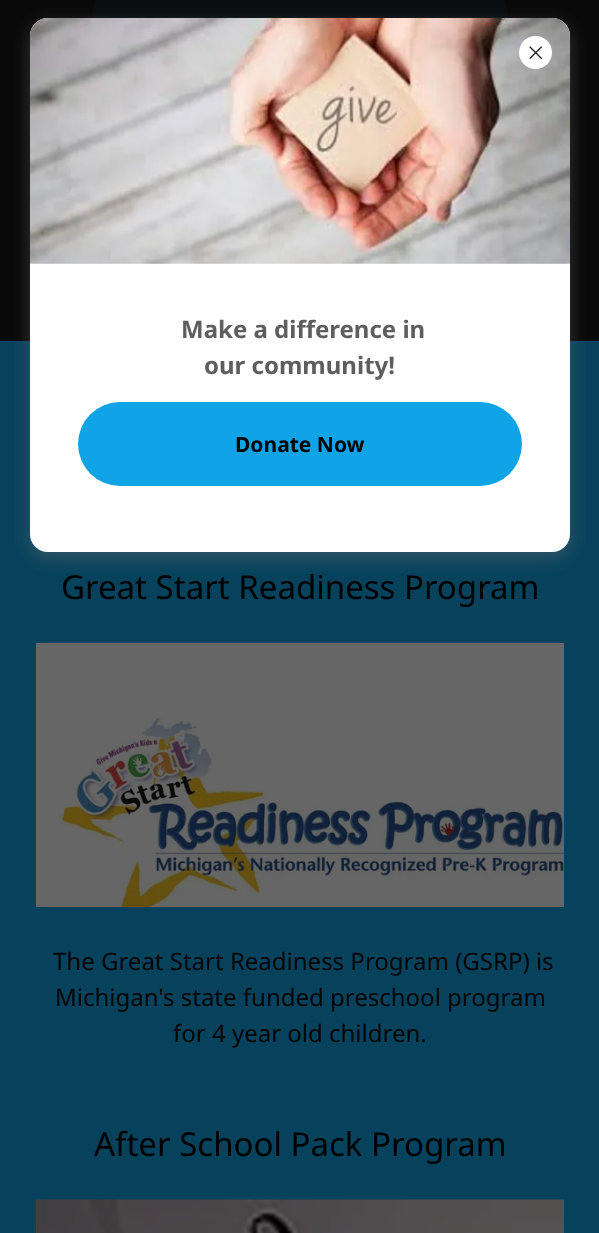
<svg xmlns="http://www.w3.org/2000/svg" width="599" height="1233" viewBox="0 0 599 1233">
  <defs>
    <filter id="blur1" x="-50%" y="-200%" width="200%" height="500%"><feGaussianBlur stdDeviation="9"/></filter>
  </defs>
  <rect width="100%" height="100%" fill="#090909"/>
  <circle cx="300" cy="47" r="210" fill="#073c54"/>
  <rect x="90" y="0" width="420" height="111" fill="#090909" fill-opacity="0.9"/>
  <rect x="0" y="341" width="599" height="892" fill="#06425c"/>
  <rect x="30" y="24" width="540" height="534" rx="18" fill="#757575" fill-opacity="0.4" filter="url(#blur1)"/>
  <rect x="30" y="18" width="540" height="534" rx="18" fill="#ffffff"/>
  <image x="30" y="18" width="540" height="246" href="img2.png"/>
  <circle cx="535.5" cy="52.5" r="16.5" fill="#ffffff"/>
  <image x="529" y="46" width="13" height="13" href="img1.png"/>
  <text x="181" y="338" font-family="Noto Sans" font-size="24" font-weight="bold" fill="#5e5e5e">Make a difference in</text>
  <text x="204" y="374" font-family="Noto Sans" font-size="24" font-weight="bold" fill="#5e5e5e">our community!</text>
  <rect x="78" y="402" width="444" height="84" rx="42" fill="#10a4e6"/>
  <text x="235" y="452" font-family="Noto Sans" font-size="21" font-weight="bold" fill="#000000">Donate Now</text>
  <text x="61" y="599" font-family="Noto Sans" font-size="33" fill="#000000">Great Start Readiness Program</text>
  <image x="36" y="643" width="528" height="264" href="img3.png"/>
  <text x="53" y="970" font-family="Noto Sans" font-size="24" fill="#050506">The Great Start Readiness Program (GSRP) is</text>
  <text x="55" y="1006" font-family="Noto Sans" font-size="24" fill="#050506">Michigan's state funded preschool program</text>
  <text x="173" y="1042" font-family="Noto Sans" font-size="24" fill="#050506">for 4 year old children.</text>
  <text x="94" y="1156" font-family="Noto Sans" font-size="33" fill="#000000">After School Pack Program</text>
  <image x="36" y="1199" width="528" height="34" href="img4.png"/>
</svg>
